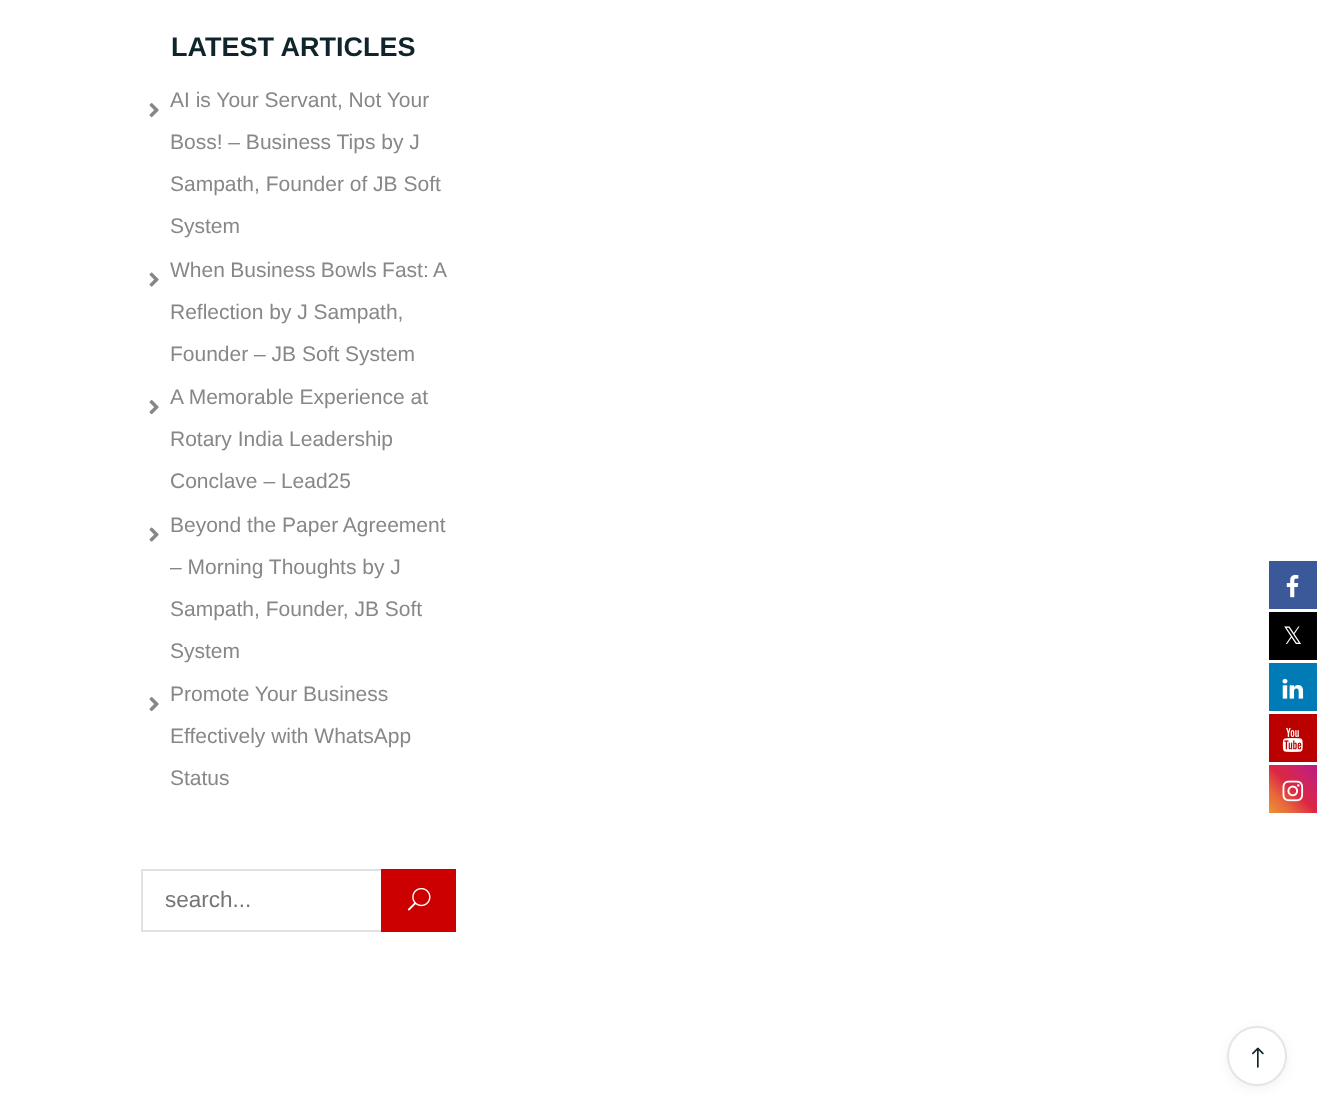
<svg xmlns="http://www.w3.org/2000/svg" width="1317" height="1115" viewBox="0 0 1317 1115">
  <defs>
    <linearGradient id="g1" gradientUnits="userSpaceOnUse" x1="1269" y1="813" x2="1317" y2="765"><stop offset="0" stop-color="#f09433"/><stop offset="0.25" stop-color="#e6683c"/><stop offset="0.5" stop-color="#dc2743"/><stop offset="0.75" stop-color="#cc2366"/><stop offset="1" stop-color="#bc1888"/></linearGradient>
    <filter id="blur1" x="-50%" y="-200%" width="200%" height="500%"><feGaussianBlur stdDeviation="6"/></filter>
  </defs>
  <rect width="100%" height="100%" fill="#ffffff"/>
  <text x="171" y="56" font-family="Liberation Sans" font-size="27" font-weight="bold" fill="#10242b">LATEST ARTICLES</text>
  <image x="149" y="103" width="10" height="15" href="img1.png"/>
  <text x="170" y="107" font-family="Liberation Sans" font-size="21" fill="#878787">AI is Your Servant, Not Your</text>
  <text x="170" y="149" font-family="Liberation Sans" font-size="21" fill="#878787">Boss! – Business Tips by J</text>
  <text x="170" y="191" font-family="Liberation Sans" font-size="21" fill="#878787">Sampath, Founder of JB Soft</text>
  <text x="170" y="233" font-family="Liberation Sans" font-size="21" fill="#878787">System</text>
  <image x="149" y="272" width="10" height="15" href="img2.png"/>
  <text x="170" y="277" word-spacing="-0.5" font-family="Liberation Sans" font-size="21" fill="#878787">When Business Bowls Fast: A</text>
  <text x="170" y="319" font-family="Liberation Sans" font-size="21" fill="#878787">Reflection by J Sampath,</text>
  <text x="170" y="361" font-family="Liberation Sans" font-size="21" fill="#878787">Founder – JB Soft System</text>
  <image x="149" y="400" width="10" height="15" href="img1.png"/>
  <text x="170" y="404" font-family="Liberation Sans" font-size="21" fill="#878787">A Memorable Experience at</text>
  <text x="170" y="446" font-family="Liberation Sans" font-size="21" fill="#878787">Rotary India Leadership</text>
  <text x="170" y="488" font-family="Liberation Sans" font-size="21" fill="#878787">Conclave – Lead25</text>
  <image x="149" y="527" width="10" height="15" href="img2.png"/>
  <text x="170" y="532" font-family="Liberation Sans" font-size="21" fill="#878787">Beyond the Paper Agreement</text>
  <text x="170" y="574" font-family="Liberation Sans" font-size="21" fill="#878787">– Morning Thoughts by J</text>
  <text x="170" y="616" font-family="Liberation Sans" font-size="21" fill="#878787">Sampath, Founder, JB Soft</text>
  <text x="170" y="658" font-family="Liberation Sans" font-size="21" fill="#878787">System</text>
  <image x="149" y="697" width="10" height="15" href="img1.png"/>
  <text x="170" y="701" font-family="Liberation Sans" font-size="21" fill="#878787">Promote Your Business</text>
  <text x="170" y="743" font-family="Liberation Sans" font-size="21" fill="#878787">Effectively with WhatsApp</text>
  <text x="170" y="785" font-family="Liberation Sans" font-size="21" fill="#878787">Status</text>
  <rect x="142" y="870" width="313" height="61" fill="none" stroke="#e1e1e1" stroke-width="2"/>
  <text x="165" y="907" font-family="Liberation Sans" font-size="22.5" fill="#757575">search...</text>
  <rect x="381" y="869" width="75" height="63" fill="#cc0000"/>
  <image x="407" y="887" width="24" height="24" href="img3.png"/>
  <rect x="1269" y="561" width="48" height="48" fill="#3b5998"/>
  <image x="1286" y="574" width="13" height="24" href="img4.png"/>
  <rect x="1269" y="612" width="48" height="48" fill="#000000"/>
  <text x="1283" y="644" font-family="DejaVu Sans" font-size="24" fill="#ffffff">𝕏</text>
  <rect x="1269" y="663" width="48" height="48" fill="#007bb6"/>
  <image x="1282" y="678" width="22" height="21" href="img5.png"/>
  <rect x="1269" y="714" width="48" height="48" fill="#bb0000"/>
  <image x="1282" y="727" width="21" height="25" href="img6.png"/>
  <rect x="1269" y="765" width="48" height="48" fill="url(#g1)"/>
  <image x="1282" y="780" width="22" height="22" href="img7.png"/>
  <rect x="1227" y="1029" width="60" height="60" rx="30" fill="#000000" fill-opacity="0.05" filter="url(#blur1)"/>
  <circle cx="1257" cy="1056" r="29" fill="#ffffff" stroke="#e5e5e5" stroke-width="2"/>
  <image x="1252" y="1047" width="12" height="21" href="img8.png"/>
</svg>
